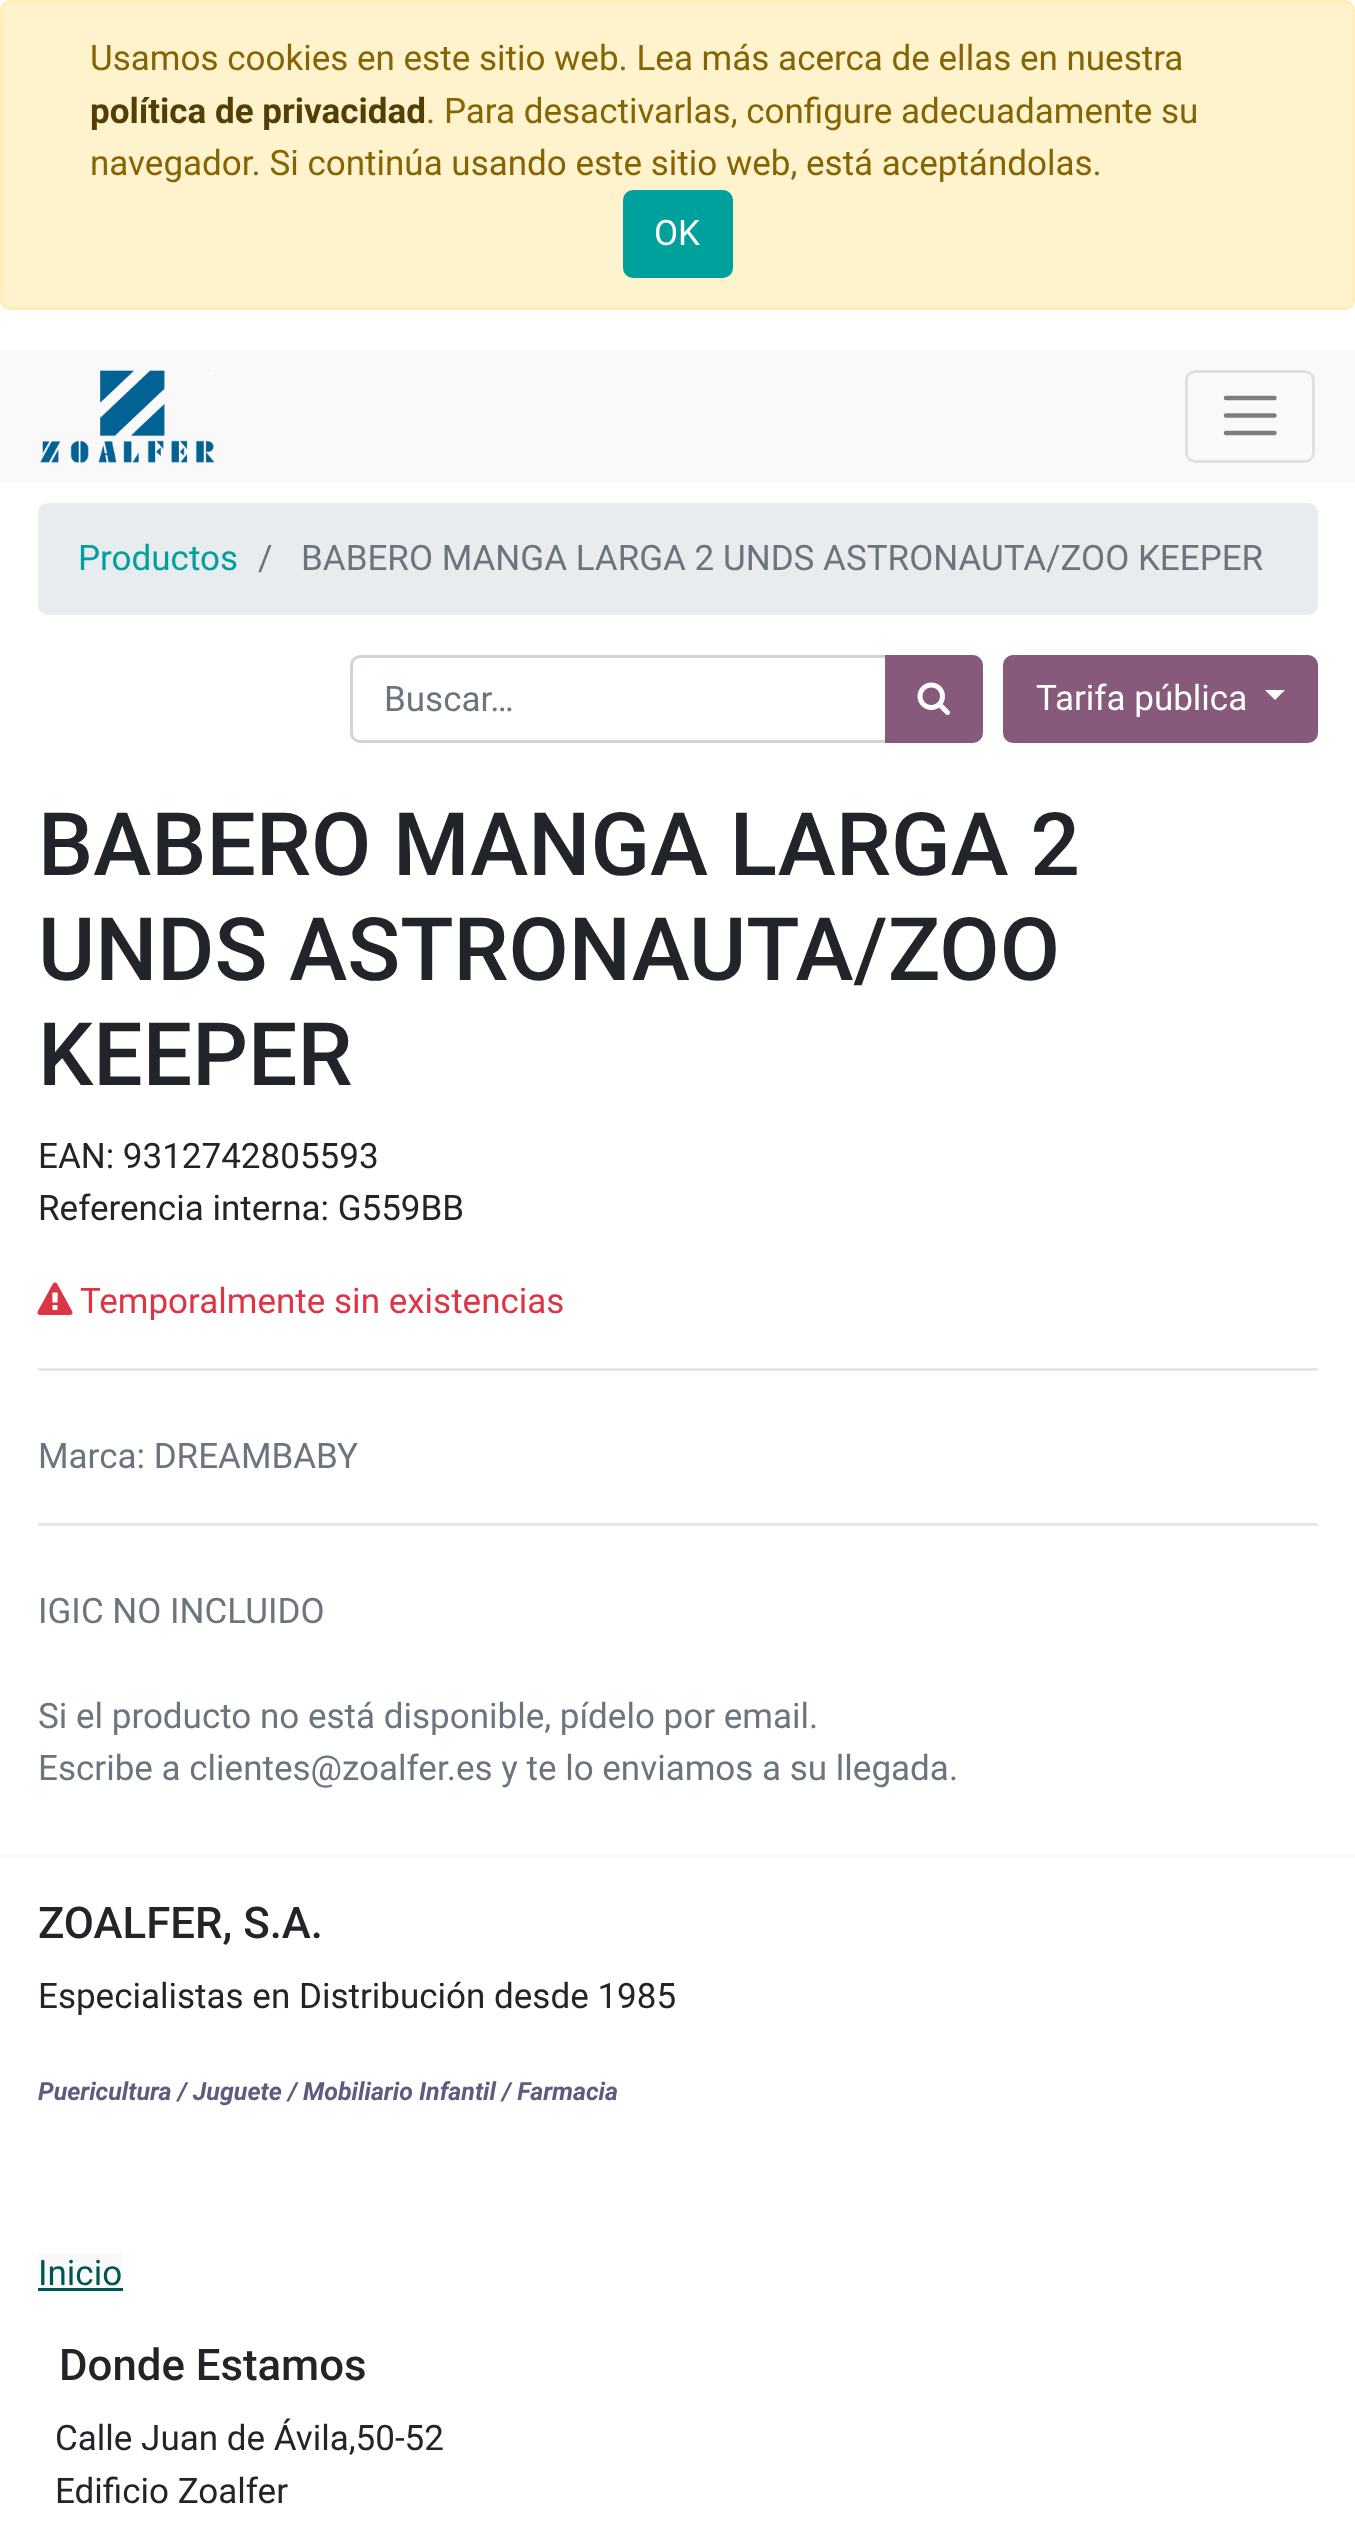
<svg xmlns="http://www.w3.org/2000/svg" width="1355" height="2525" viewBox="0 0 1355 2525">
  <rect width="100%" height="100%" fill="#ffffff"/>
  <rect x="1.5" y="1.5" width="1352" height="307" rx="8.5" fill="#fff3cd" stroke="#ffeeba" stroke-width="3"/>
  <text x="90" y="70" font-family="Roboto" font-size="35" fill="#856404">Usamos cookies en este sitio web. Lea más acerca de ellas en nuestra</text>
  <text x="90" y="123" font-family="Roboto" font-size="35" font-weight="bold" fill="#533f03">política de privacidad</text>
  <text x="426" y="123" font-family="Roboto" font-size="35" fill="#856404">. Para desactivarlas, configure adecuadamente su</text>
  <text x="90" y="175" font-family="Roboto" font-size="35" fill="#856404">navegador. Si continúa usando este sitio web, está aceptándolas.</text>
  <rect x="624.5" y="191.5" width="107" height="85" rx="8.5" fill="#00a09d" stroke="#00a09d" stroke-width="3"/>
  <text x="654" y="245" font-family="Roboto" font-size="35" fill="#ffffff">OK</text>
  <rect x="0" y="350" width="1355" height="133" fill="#f9f9f9"/>
  <image x="40" y="370" width="175" height="93" href="img1.png"/>
  <rect x="1186.5" y="371.5" width="127" height="90" rx="8.5" fill="none" stroke="#e0e0e0" stroke-width="3"/>
  <path d="M1226 398H1274.5M1226 415.5H1274.5M1226 433H1274.5" fill="none" stroke="#7d7d7d" stroke-width="4.4" stroke-linecap="round"/>
  <rect x="38" y="503" width="1280" height="112" rx="10" fill="#e9ecef"/>
  <text x="78" y="570" font-family="Roboto" font-size="35" fill="#00a09d">Productos</text>
  <text x="258" y="570" font-family="Roboto" font-size="35" fill="#6c757d">/</text>
  <text x="301" y="570" font-family="Roboto" font-size="35" fill="#6c757d">BABERO MANGA LARGA 2 UNDS ASTRONAUTA/ZOO KEEPER</text>
  <path d="M360 656.5H886.5V741.5H360C355.5 741.5 351.5 737.5 351.5 733V665C351.5 660.5 355.5 656.5 360 656.5Z" fill="none" stroke="#ced4da" stroke-width="3"/>
  <text x="384" y="711" font-family="Roboto" font-size="35" fill="#6c757d">Buscar…</text>
  <path d="M886.5 656.5H973C977.5 656.5 981.5 660.5 981.5 665V733C981.5 737.5 977.5 741.5 973 741.5H886.5Z" fill="#875a7b" stroke="#875a7b" stroke-width="3"/>
  <image x="917" y="682" width="33" height="33" href="img2.png"/>
  <rect x="1004.5" y="656.5" width="312" height="85" rx="8.5" fill="#875a7b" stroke="#875a7b" stroke-width="3"/>
  <text x="1036" y="710" font-family="Roboto" font-size="35" fill="#ffffff">Tarifa pública</text>
  <path d="M1265 690H1285L1275 700Z" fill="#ffffff"/>
  <text x="38" y="875" font-family="Roboto" font-size="87.5" font-weight="500" fill="#212529">BABERO MANGA LARGA 2</text>
  <text x="38" y="980" font-family="Roboto" font-size="87.5" font-weight="500" fill="#212529">UNDS ASTRONAUTA/ZOO</text>
  <text x="38" y="1085" font-family="Roboto" font-size="87.5" font-weight="500" fill="#212529">KEEPER</text>
  <text x="38" y="1168" font-family="Roboto" font-size="35" fill="#212529">EAN: 9312742805593</text>
  <text x="38" y="1220" font-family="Roboto" font-size="35" fill="#212529">Referencia interna: G559BB</text>
  <image x="37" y="1282" width="36" height="33" href="img3.png"/>
  <text x="80" y="1313" font-family="Roboto" font-size="35" fill="#dc3545">Temporalmente sin existencias</text>
  <rect x="38" y="1368" width="1280" height="3" fill="#e6e6e6"/>
  <text x="38" y="1468" font-family="Roboto" font-size="35" fill="#6c757d">Marca: DREAMBABY</text>
  <rect x="38" y="1523" width="1280" height="3" fill="#e6e6e6"/>
  <text x="38" y="1623" font-family="Roboto" font-size="35" fill="#6c757d">IGIC NO INCLUIDO</text>
  <text x="38" y="1728" font-family="Roboto" font-size="35" fill="#6c757d">Si el producto no está disponible, pídelo por email.</text>
  <text x="38" y="1780" font-family="Roboto" font-size="35" fill="#6c757d">Escribe a clientes@zoalfer.es y te lo enviamos a su llegada.</text>
  <rect x="0" y="1855" width="1355" height="3" fill="#f9f9f9"/>
  <text x="38" y="1938" font-family="Roboto" font-size="43.75" font-weight="500" fill="#212529">ZOALFER, S.A.</text>
  <text x="38" y="2008" font-family="Roboto" font-size="35" fill="#212529">Especialistas en Distribución desde 1985</text>
  <text x="38" y="2100" font-family="Roboto" font-size="25" font-weight="bold" font-style="italic" fill="#5c5b80">Puericultura / Juguete / Mobiliario Infantil / Farmacia</text>
  <rect x="38" y="2253" width="85" height="40" fill="#f9f9f9"/>
  <text x="38" y="2285" font-family="Roboto" font-size="35" fill="#005452">Inicio</text>
  <rect x="38" y="2288" width="85" height="3" fill="#005452"/>
  <text x="59" y="2380" font-family="Roboto" font-size="43.75" font-weight="500" fill="#212529">Donde Estamos</text>
  <text x="55" y="2450" font-family="Roboto" font-size="35" fill="#212529">Calle Juan de Ávila,50-52</text>
  <text x="55" y="2503" font-family="Roboto" font-size="35" fill="#212529">Edificio Zoalfer</text>
</svg>
